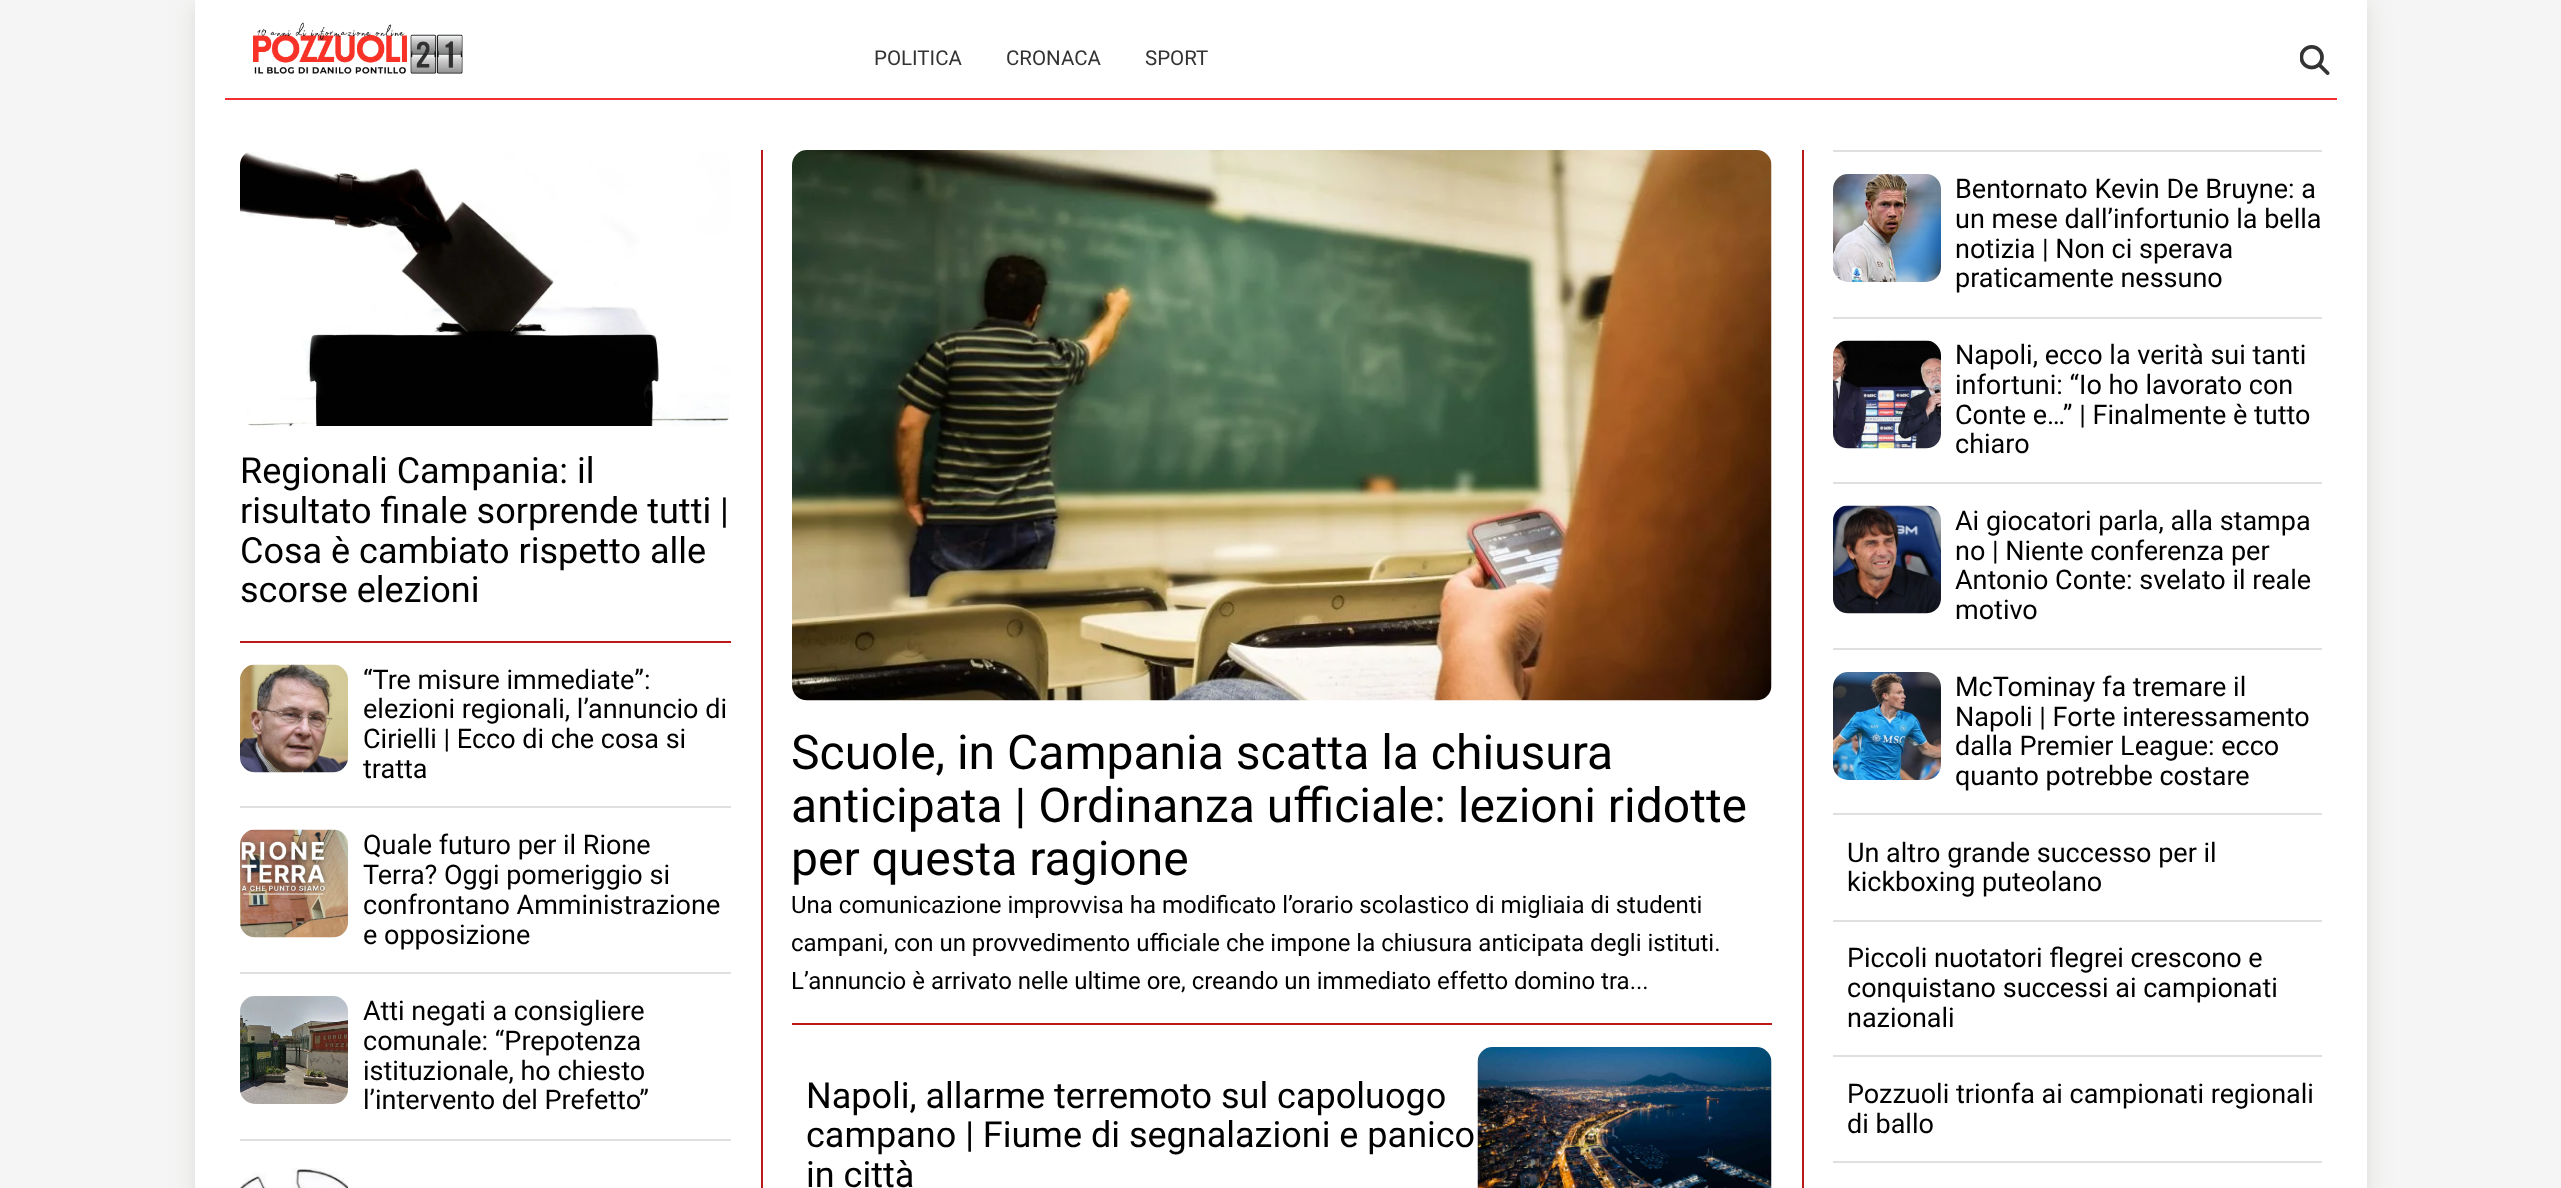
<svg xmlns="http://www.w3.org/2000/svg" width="2561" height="1188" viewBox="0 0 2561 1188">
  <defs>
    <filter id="blur1" x="-50%" y="-200%" width="200%" height="500%"><feGaussianBlur stdDeviation="4.5"/></filter>
    <filter id="blur2" x="-50%" y="-200%" width="200%" height="500%"><feGaussianBlur stdDeviation="15"/></filter>
  </defs>
  <rect width="100%" height="100%" fill="#f5f5f5"/>
  <rect x="195" y="9" width="2172" height="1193" fill="#deddda" fill-opacity="0.6" filter="url(#blur1)"/>
  <rect x="195" y="0" width="2172" height="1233" fill="#deddda" fill-opacity="0.8" filter="url(#blur2)"/>
  <rect x="195" y="0" width="2172" height="1188" fill="#ffffff"/>
  <rect x="225" y="98" width="2112" height="2" fill="#f23030"/>
  <image x="253" y="22" width="210" height="52" href="img1.png"/>
  <text x="874" y="65" font-family="Roboto" font-size="20.5" fill="#333333">POLITICA</text>
  <text x="1006" y="65" font-family="Roboto" font-size="20.5" fill="#333333">CRONACA</text>
  <text x="1145" y="65" font-family="Roboto" font-size="20.5" fill="#333333">SPORT</text>
  <image x="2300" y="45" width="30" height="30" href="img2.png"/>
  <rect x="761" y="150" width="2" height="1038" fill="#bb1919"/>
  <rect x="240" y="641" width="491" height="2" fill="#bb1919"/>
  <image x="240" y="152" width="490" height="274" href="img3.png"/>
  <text x="240" y="483" font-family="Roboto" font-size="36" fill="#000000">Regionali Campania: il</text>
  <text x="240" y="523" font-family="Roboto" font-size="36" fill="#000000">risultato finale sorprende tutti |</text>
  <text x="240" y="563" font-family="Roboto" font-size="36" fill="#000000">Cosa è cambiato rispetto alle</text>
  <text x="240" y="602" font-family="Roboto" font-size="36" fill="#000000">scorse elezioni</text>
  <image x="240" y="664" width="108" height="109" href="img4.png"/>
  <text x="363" y="689" font-family="Roboto" font-size="27" fill="#000000">“Tre misure immediate”:</text>
  <text x="363" y="718" font-family="Roboto" font-size="27" fill="#000000">elezioni regionali, l’annuncio di</text>
  <text x="363" y="748" font-family="Roboto" font-size="27" fill="#000000">Cirielli | Ecco di che cosa si</text>
  <text x="363" y="778" font-family="Roboto" font-size="27" fill="#000000">tratta</text>
  <rect x="240" y="806" width="491" height="2" fill="#e0e0e0"/>
  <image x="240" y="829" width="108" height="109" href="img5.png"/>
  <text x="363" y="854" font-family="Roboto" font-size="27" fill="#000000">Quale futuro per il Rione</text>
  <text x="363" y="884" font-family="Roboto" font-size="27" fill="#000000">Terra? Oggi pomeriggio si</text>
  <text x="363" y="914" font-family="Roboto" font-size="27" fill="#000000">confrontano Amministrazione</text>
  <text x="363" y="944" font-family="Roboto" font-size="27" fill="#000000">e opposizione</text>
  <rect x="240" y="972" width="491" height="2" fill="#e0e0e0"/>
  <image x="240" y="996" width="108" height="108" href="img6.png"/>
  <text x="363" y="1020" font-family="Roboto" font-size="27" fill="#000000">Atti negati a consigliere</text>
  <text x="363" y="1050" font-family="Roboto" font-size="27" fill="#000000">comunale: “Prepotenza</text>
  <text x="363" y="1080" font-family="Roboto" font-size="27" fill="#000000">istituzionale, ho chiesto</text>
  <text x="363" y="1109" font-family="Roboto" font-size="27" fill="#000000">l’intervento del Prefetto”</text>
  <rect x="240" y="1139" width="491" height="2" fill="#e0e0e0"/>
  <image x="240" y="1168" width="108" height="20" href="img7.png"/>
  <image x="792" y="150" width="980" height="551" href="img8.png"/>
  <text x="791" y="769" font-family="Roboto" font-size="48" fill="#000000">Scuole, in Campania scatta la chiusura</text>
  <text x="791" y="822" font-family="Roboto" font-size="48" fill="#000000">anticipata | Ordinanza ufficiale: lezioni ridotte</text>
  <text x="791" y="875" font-family="Roboto" font-size="48" fill="#000000">per questa ragione</text>
  <text x="791" y="913" font-family="Roboto" font-size="24" fill="#000000">Una comunicazione improvvisa ha modificato l’orario scolastico di migliaia di studenti</text>
  <text x="791" y="951" font-family="Roboto" font-size="24" fill="#000000">campani, con un provvedimento ufficiale che impone la chiusura anticipata degli istituti.</text>
  <text x="791" y="989" font-family="Roboto" font-size="24" fill="#000000">L’annuncio è arrivato nelle ultime ore, creando un immediato effetto domino tra...</text>
  <rect x="792" y="1023" width="980" height="2" fill="#bb1919"/>
  <text x="806" y="1108" font-family="Roboto" font-size="36" fill="#000000">Napoli, allarme terremoto sul capoluogo</text>
  <text x="806" y="1147" font-family="Roboto" font-size="36" fill="#000000">campano | Fiume di segnalazioni e panico</text>
  <text x="806" y="1187" font-family="Roboto" font-size="36" fill="#000000">in città</text>
  <image x="1477" y="1047" width="295" height="141" href="img9.png"/>
  <rect x="1802" y="150" width="2" height="1038" fill="#bb1919"/>
  <rect x="1833" y="150" width="489" height="2" fill="#e0e0e0"/>
  <image x="1833" y="174" width="108" height="108" href="img10.png"/>
  <text x="1955" y="198" font-family="Roboto" font-size="27" fill="#000000">Bentornato Kevin De Bruyne: a</text>
  <text x="1955" y="228" font-family="Roboto" font-size="27" fill="#000000">un mese dall’infortunio la bella</text>
  <text x="1955" y="258" font-family="Roboto" font-size="27" fill="#000000">notizia | Non ci sperava</text>
  <text x="1955" y="287" font-family="Roboto" font-size="27" fill="#000000">praticamente nessuno</text>
  <rect x="1833" y="317" width="489" height="2" fill="#e0e0e0"/>
  <image x="1833" y="340" width="108" height="109" href="img11.png"/>
  <text x="1955" y="364" font-family="Roboto" font-size="27" fill="#000000">Napoli, ecco la verità sui tanti</text>
  <text x="1955" y="394" font-family="Roboto" font-size="27" fill="#000000">infortuni: “Io ho lavorato con</text>
  <text x="1955" y="424" font-family="Roboto" font-size="27" fill="#000000">Conte e…” | Finalmente è tutto</text>
  <text x="1955" y="453" font-family="Roboto" font-size="27" fill="#000000">chiaro</text>
  <rect x="1833" y="482" width="489" height="2" fill="#e0e0e0"/>
  <image x="1833" y="505" width="108" height="109" href="img12.png"/>
  <text x="1955" y="530" font-family="Roboto" font-size="27" fill="#000000">Ai giocatori parla, alla stampa</text>
  <text x="1955" y="560" font-family="Roboto" font-size="27" fill="#000000">no | Niente conferenza per</text>
  <text x="1955" y="589" font-family="Roboto" font-size="27" fill="#000000">Antonio Conte: svelato il reale</text>
  <text x="1955" y="619" font-family="Roboto" font-size="27" fill="#000000">motivo</text>
  <rect x="1833" y="648" width="489" height="2" fill="#e0e0e0"/>
  <image x="1833" y="672" width="108" height="108" href="img13.png"/>
  <text x="1955" y="696" font-family="Roboto" font-size="27" fill="#000000">McTominay fa tremare il</text>
  <text x="1955" y="726" font-family="Roboto" font-size="27" fill="#000000">Napoli | Forte interessamento</text>
  <text x="1955" y="755" font-family="Roboto" font-size="27" fill="#000000">dalla Premier League: ecco</text>
  <text x="1955" y="785" font-family="Roboto" font-size="27" fill="#000000">quanto potrebbe costare</text>
  <rect x="1833" y="813" width="489" height="2" fill="#e0e0e0"/>
  <text x="1847" y="862" font-family="Roboto" font-size="27" fill="#000000">Un altro grande successo per il</text>
  <text x="1847" y="891" font-family="Roboto" font-size="27" fill="#000000">kickboxing puteolano</text>
  <rect x="1833" y="920" width="489" height="2" fill="#e0e0e0"/>
  <text x="1847" y="967" font-family="Roboto" font-size="27" fill="#000000">Piccoli nuotatori flegrei crescono e</text>
  <text x="1847" y="997" font-family="Roboto" font-size="27" fill="#000000">conquistano successi ai campionati</text>
  <text x="1847" y="1027" font-family="Roboto" font-size="27" fill="#000000">nazionali</text>
  <rect x="1833" y="1055" width="489" height="2" fill="#e0e0e0"/>
  <text x="1847" y="1103" font-family="Roboto" font-size="27" fill="#000000">Pozzuoli trionfa ai campionati regionali</text>
  <text x="1847" y="1133" font-family="Roboto" font-size="27" fill="#000000">di ballo</text>
  <rect x="1833" y="1161" width="489" height="2" fill="#e0e0e0"/>
</svg>
